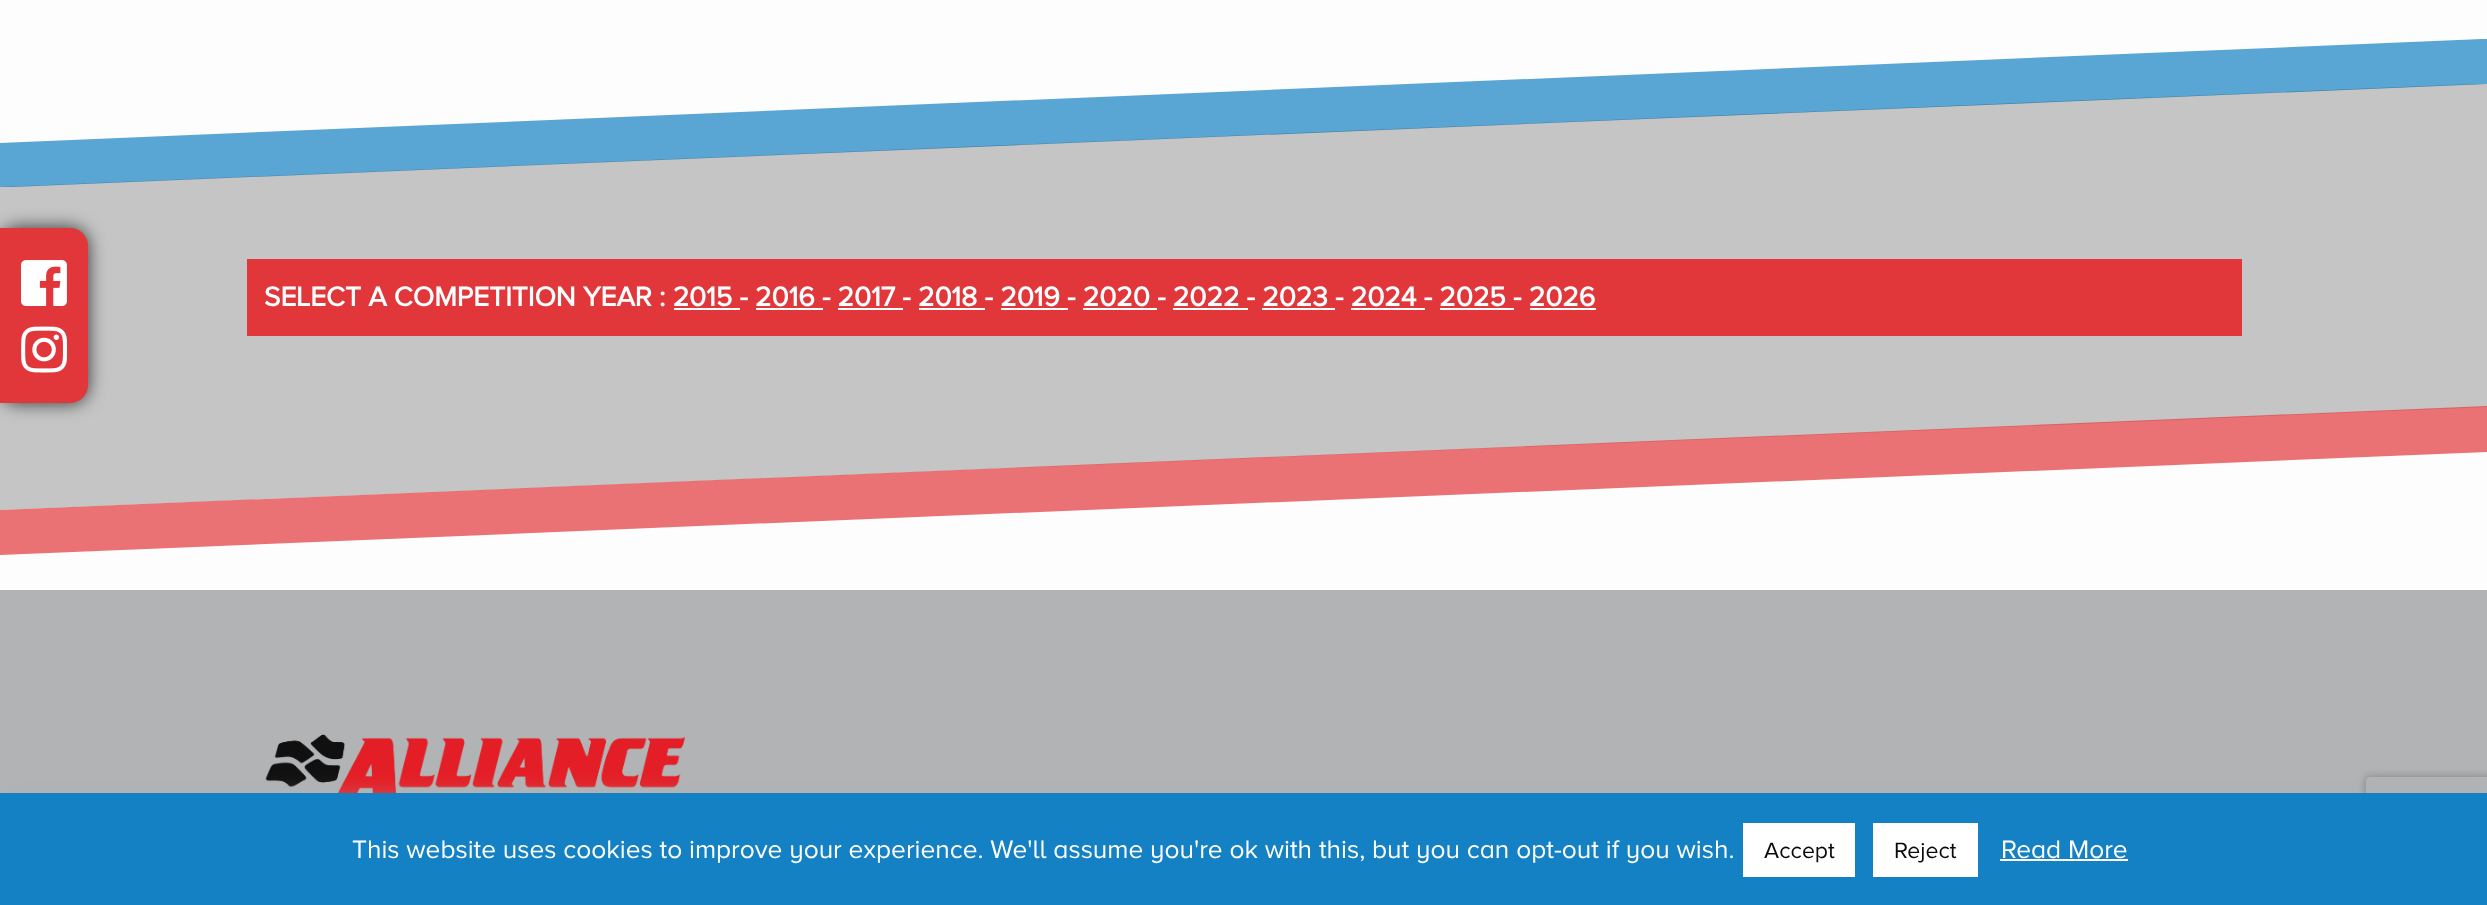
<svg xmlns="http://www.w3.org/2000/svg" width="2487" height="905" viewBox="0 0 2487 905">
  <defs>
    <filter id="blur1" x="-50%" y="-200%" width="200%" height="500%"><feGaussianBlur stdDeviation="9"/></filter>
    <clipPath id="clip1"><path d="M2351 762H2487V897H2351ZM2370 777H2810C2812 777 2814 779 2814 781V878C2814 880 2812 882 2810 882H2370C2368 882 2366 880 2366 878V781C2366 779 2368 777 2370 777Z" clip-rule="evenodd"/></clipPath>
    <filter id="blur2" x="-50%" y="-200%" width="200%" height="500%"><feGaussianBlur stdDeviation="4.5"/></filter>
  </defs>
  <rect width="100%" height="100%" fill="#fdfdfd"/>
  <path d="M0 143V187H12L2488 84V39H2482Z" fill="#59a6d5"/>
  <path d="M0 187V510L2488 407V84H2473Z" fill="#000000" fill-opacity="0.22"/>
  <path d="M0 510V555L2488 452V406Z" fill="#e1363a" fill-opacity="0.7"/>
  <rect x="0" y="228" width="88" height="175" rx="18" fill="#000000" fill-opacity="0.75" filter="url(#blur1)"/>
  <path d="M0 228H70C80 228 88 236 88 246V385C88 395 80 403 70 403H0Z" fill="#e1363a"/>
  <image x="21" y="260" width="46" height="46" href="img1.png"/>
  <image x="21" y="326" width="47" height="47" href="img2.png"/>
  <rect x="247" y="259" width="1995" height="77" fill="#e1363a"/>
  <text x="264" y="306" font-family="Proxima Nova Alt" font-size="28" font-weight="bold" fill="#ffffff">SELECT A COMPETITION YEAR : 2015 - 2016 - 2017 - 2018 - 2019 - 2020 - 2022 - 2023 - 2024 - 2025 - 2026</text>
  <rect x="674" y="308" width="66" height="2" fill="#ffffff"/>
  <rect x="756" y="308" width="67" height="2" fill="#ffffff"/>
  <rect x="838" y="308" width="65" height="2" fill="#ffffff"/>
  <rect x="919" y="308" width="66" height="2" fill="#ffffff"/>
  <rect x="1001" y="308" width="67" height="2" fill="#ffffff"/>
  <rect x="1083" y="308" width="74" height="2" fill="#ffffff"/>
  <rect x="1173" y="308" width="75" height="2" fill="#ffffff"/>
  <rect x="1262" y="308" width="73" height="2" fill="#ffffff"/>
  <rect x="1351" y="308" width="74" height="2" fill="#ffffff"/>
  <rect x="1440" y="308" width="74" height="2" fill="#ffffff"/>
  <rect x="1530" y="308" width="66" height="2" fill="#ffffff"/>
  <rect x="0" y="590" width="2487" height="203" fill="#b1b3b4"/>
  <image x="265" y="734" width="420" height="59" href="img3.png"/>
  <rect x="0" y="791" width="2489" height="114" fill="#acabab" fill-opacity="0.3" filter="url(#blur1)"/>
  <g clip-path="url(#clip1)">
    <rect x="2366" y="777" width="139" height="105" rx="4" fill="#808080" filter="url(#blur2)"/>
  </g>
  <rect x="0" y="793" width="2487" height="112" fill="#1381c3"/>
  <text x="352" y="858" font-family="Proxima Nova Alt" font-size="26.25" fill="#ffffff">This website uses cookies to improve your experience. We'll assume you're ok with this, but you can opt-out if you wish.</text>
  <rect x="1743" y="823" width="112" height="54" fill="#ffffff"/>
  <text x="1764" y="858" font-family="Proxima Nova Alt" font-size="23" fill="#0a0a0a">Accept</text>
  <rect x="1873" y="823" width="105" height="54" fill="#ffffff"/>
  <text x="1894" y="858" font-family="Proxima Nova Alt" font-size="23" fill="#0a0a0a">Reject</text>
  <text x="2001" y="858" font-family="Proxima Nova Alt" font-size="26.25" fill="#ffffff">Read More</text>
  <rect x="2000" y="859" width="128" height="2" fill="#ffffff"/>
</svg>
